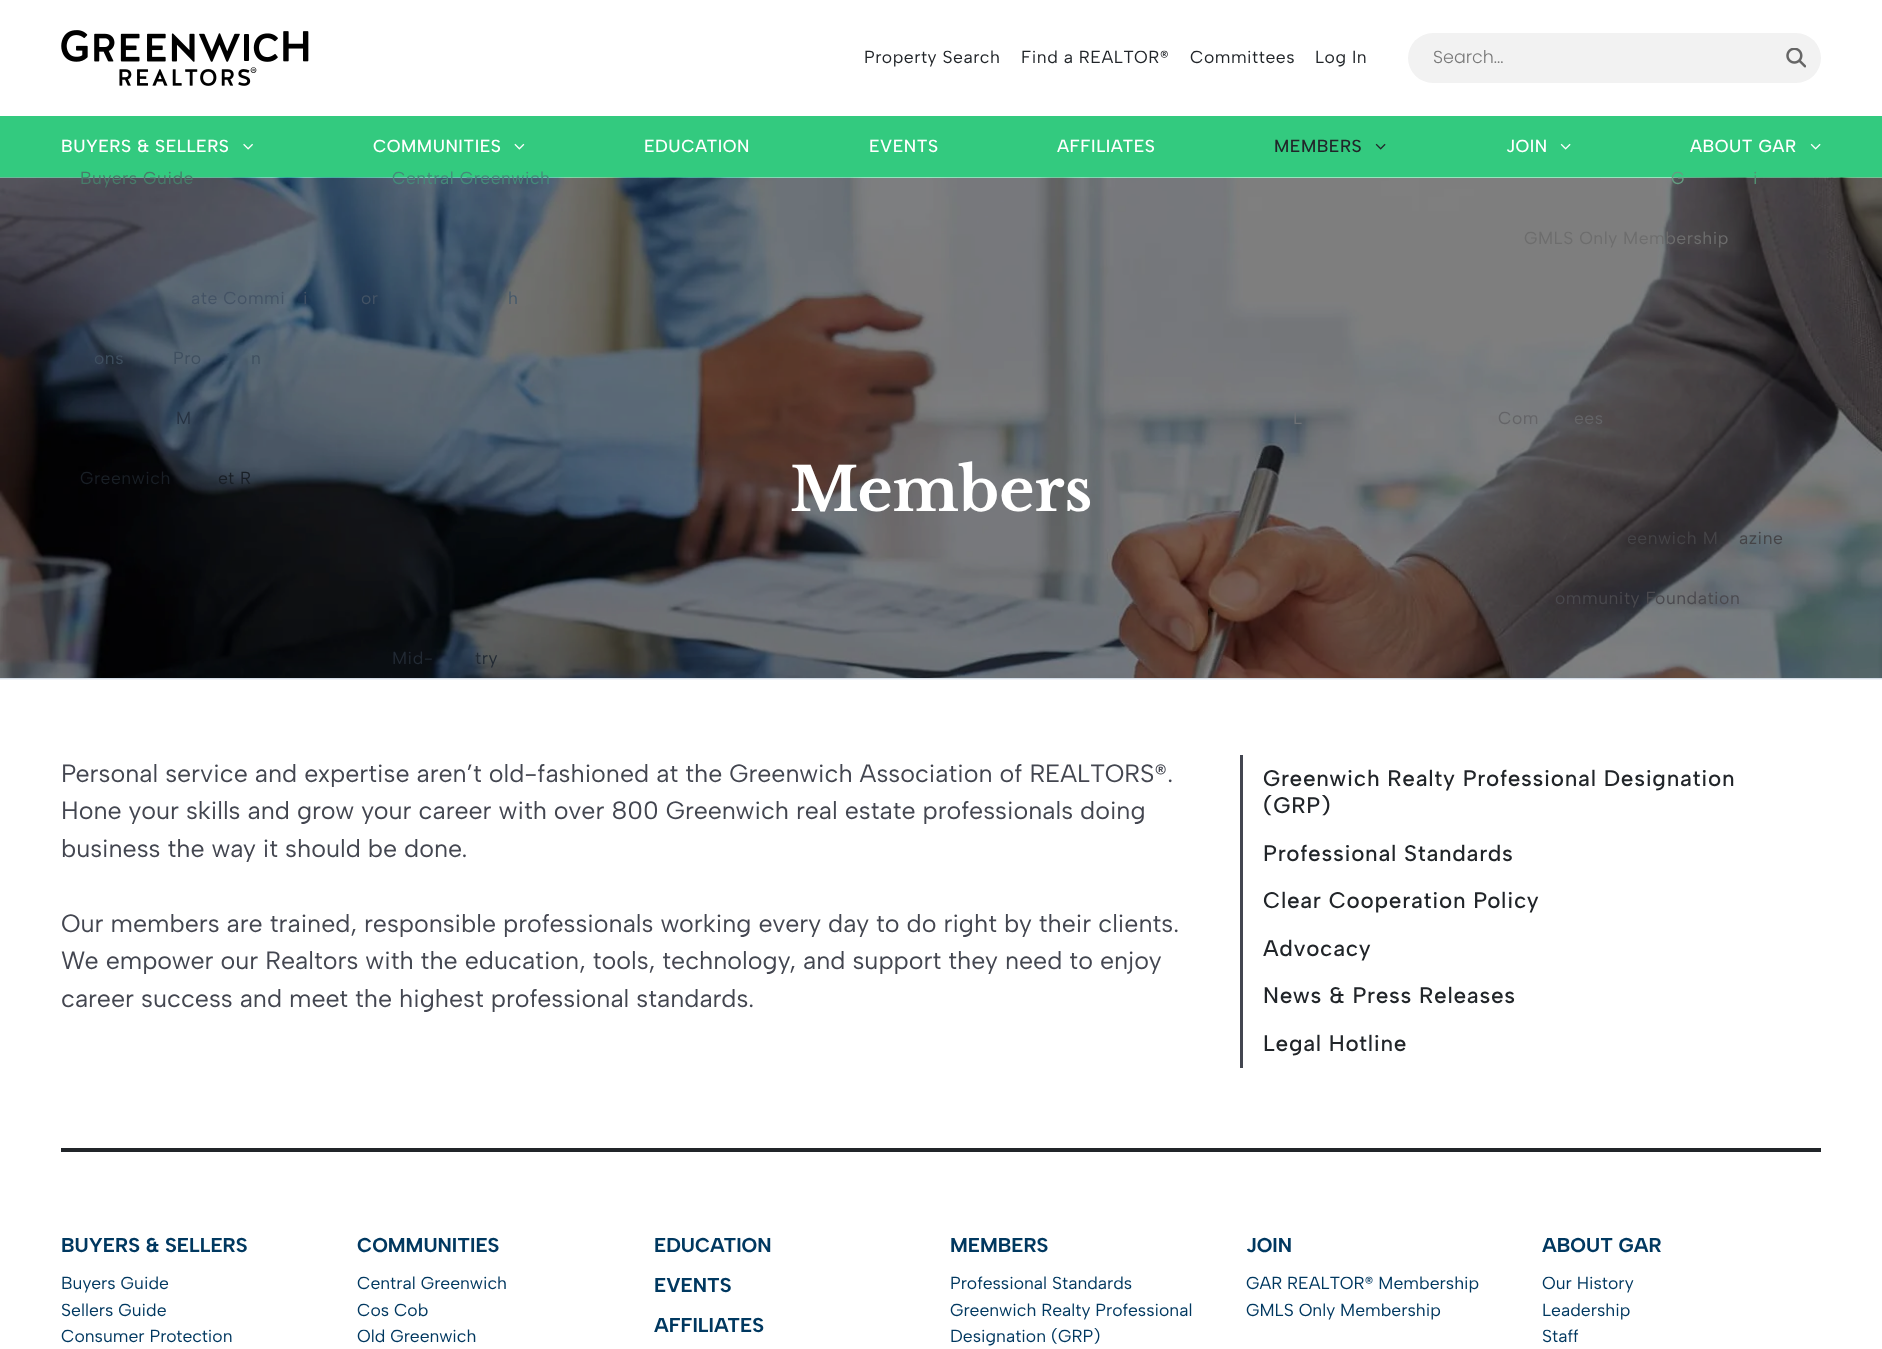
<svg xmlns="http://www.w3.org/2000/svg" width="1882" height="1349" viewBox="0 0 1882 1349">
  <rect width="100%" height="100%" fill="#ffffff"/>
  <image x="61" y="30" width="248" height="56" href="img1.png"/>
  <text x="864" y="63" font-family="Albert Sans" font-size="17.5" letter-spacing="0.5" fill="#212529">Property Search</text>
  <text x="1021" y="63" font-family="Albert Sans" font-size="17.5" letter-spacing="0.5" fill="#212529">Find a REALTOR®</text>
  <text x="1190" y="63" font-family="Albert Sans" font-size="17.5" letter-spacing="0.5" fill="#212529">Committees</text>
  <text x="1315" y="63" font-family="Albert Sans" font-size="17.5" letter-spacing="0.5" fill="#212529">Log In</text>
  <rect x="1408" y="33" width="413" height="50" rx="25" fill="#f2f2f2"/>
  <text x="1433" y="63" font-family="Poppins" font-size="17.5" font-weight="300" fill="#797979">Search...</text>
  <image x="1786" y="48" width="20" height="20" href="img2.png"/>
  <rect x="0" y="116" width="1882" height="62" fill="#33ca7f"/>
  <text x="61" y="152" font-family="Albert Sans" font-size="17.5" font-weight="500" letter-spacing="0.5" fill="#ffffff">BUYERS &amp; SELLERS</text>
  <image x="243" y="143" width="10" height="7" href="img3.png"/>
  <image x="0" y="177" width="1882" height="501" href="img7.png"/>
  <text x="80" y="184" font-family="Albert Sans" font-size="17.5" letter-spacing="0.5" fill="#487c6a">Buyers Guide</text>
  <text x="191" y="304" font-family="Albert Sans" font-size="17.5" letter-spacing="0.5" fill="#445365">ate Commi</text>
  <text x="303" y="304" font-family="Albert Sans" font-size="17.5" letter-spacing="0.5" fill="#445365">i</text>
  <text x="361" y="304" font-family="Albert Sans" font-size="17.5" letter-spacing="0.5" fill="#445365">or</text>
  <text x="94" y="364" font-family="Albert Sans" font-size="17.5" letter-spacing="0.5" fill="#3f4f5f">ons</text>
  <text x="173" y="364" font-family="Albert Sans" font-size="17.5" letter-spacing="0.5" fill="#3f4f5f">Pro</text>
  <text x="251" y="364" font-family="Albert Sans" font-size="17.5" letter-spacing="0.5" fill="#3f4f5f">n</text>
  <text x="176" y="424" font-family="Albert Sans" font-size="17.5" letter-spacing="0.5" fill="#263241">M</text>
  <text x="80" y="484" font-family="Albert Sans" font-size="17.5" letter-spacing="0.5" fill="#191f26">Greenwich</text>
  <text x="218" y="484" font-family="Albert Sans" font-size="17.5" letter-spacing="0.5" fill="#191f26">et R</text>
  <text x="373" y="152" font-family="Albert Sans" font-size="17.5" font-weight="500" letter-spacing="0.5" fill="#ffffff">COMMUNITIES</text>
  <image x="514" y="143" width="11" height="7" href="img4.png"/>
  <text x="392" y="184" font-family="Albert Sans" font-size="17.5" letter-spacing="0.5" fill="#458a7a">Central Greenwich</text>
  <text x="508" y="304" font-family="Albert Sans" font-size="17.5" letter-spacing="0.5" fill="#45596b">h</text>
  <text x="392" y="664" font-family="Albert Sans" font-size="17.5" letter-spacing="0.5" fill="#222a34">Mid-</text>
  <text x="475" y="664" font-family="Albert Sans" font-size="17.5" letter-spacing="0.5" fill="#222a34">try</text>
  <text x="644" y="152" font-family="Albert Sans" font-size="17.5" font-weight="500" letter-spacing="0.5" fill="#ffffff">EDUCATION</text>
  <text x="869" y="152" font-family="Albert Sans" font-size="17.5" font-weight="500" letter-spacing="0.5" fill="#ffffff">EVENTS</text>
  <text x="1057" y="152" font-family="Albert Sans" font-size="17.5" font-weight="500" letter-spacing="0.5" fill="#ffffff">AFFILIATES</text>
  <text x="1274" y="152" font-family="Albert Sans" font-size="17.5" font-weight="500" letter-spacing="0.5" fill="#212529">MEMBERS</text>
  <image x="1375" y="143" width="11" height="7" href="img5.png"/>
  <text x="1671" y="184" font-family="Albert Sans" font-size="17.5" letter-spacing="0.5" fill="#659e82">G</text>
  <text x="1293" y="424" font-family="Albert Sans" font-size="17.5" letter-spacing="0.5" fill="#6f7276">L</text>
  <text x="1690" y="152" font-family="Albert Sans" font-size="17.5" font-weight="500" letter-spacing="0.5" fill="#ffffff">ABOUT GAR</text>
  <image x="1810" y="143" width="11" height="7" href="img6.png"/>
  <text x="1498" y="424" font-family="Albert Sans" font-size="17.5" letter-spacing="0.5" fill="#646467">Com</text>
  <text x="1574" y="424" font-family="Albert Sans" font-size="17.5" letter-spacing="0.5" fill="#646467">ees</text>
  <text x="1627" y="544" font-family="Albert Sans" font-size="17.5" letter-spacing="0.5" fill="#454447">eenwich M</text>
  <text x="1739" y="544" font-family="Albert Sans" font-size="17.5" letter-spacing="0.5" fill="#454447">azine</text>
  <text x="1555" y="604" font-family="Albert Sans" font-size="17.5" letter-spacing="0.5" fill="#4a494e">ommunity Foundation</text>
  <text x="1506" y="152" font-family="Albert Sans" font-size="17.5" font-weight="500" letter-spacing="0.5" fill="#ffffff">JOIN</text>
  <image x="1560" y="143" width="11" height="7" href="img6.png"/>
  <text x="1753" y="184" font-family="Albert Sans" font-size="17.5" letter-spacing="0.5" fill="#539776">i</text>
  <text x="1524" y="244" font-family="Albert Sans" font-size="17.5" letter-spacing="0.5" fill="#6d6d6d">GMLS Only Membership</text>
  <rect x="0" y="678" width="1882" height="1" fill="#d3dce6"/>
  <text x="790" y="511" font-family="Libre Baskerville" font-size="60" font-weight="bold" fill="#ffffff">Members</text>
  <rect x="0" y="679" width="1882" height="1" fill="#eff2f7"/>
  <text x="61" y="782" font-family="Albert Sans" font-size="25" fill="#434650">Personal service and expertise aren’t old-fashioned at the Greenwich Association of REALTORS®.</text>
  <text x="61" y="819" font-family="Albert Sans" font-size="25" fill="#434650">Hone your skills and grow your career with over 800 Greenwich real estate professionals doing</text>
  <text x="61" y="857" font-family="Albert Sans" font-size="25" fill="#434650">business the way it should be done.</text>
  <text x="61" y="932" font-family="Albert Sans" font-size="25" fill="#434650">Our members are trained, responsible professionals working every day to do right by their clients.</text>
  <text x="61" y="969" font-family="Albert Sans" font-size="25" fill="#434650">We empower our Realtors with the education, tools, technology, and support they need to enjoy</text>
  <text x="61" y="1007" font-family="Albert Sans" font-size="25" fill="#434650">career success and meet the highest professional standards.</text>
  <rect x="1240" y="755" width="3" height="313" fill="#434650"/>
  <text x="1263" y="786" font-family="Albert Sans" font-size="22.5" font-weight="500" letter-spacing="0.7" fill="#212529">Greenwich Realty Professional Designation</text>
  <text x="1263" y="813" font-family="Albert Sans" font-size="22.5" font-weight="500" letter-spacing="0.7" fill="#212529">(GRP)</text>
  <text x="1263" y="861" font-family="Albert Sans" font-size="22.5" font-weight="500" letter-spacing="0.7" fill="#212529">Professional Standards</text>
  <text x="1263" y="908" font-family="Albert Sans" font-size="22.5" font-weight="500" letter-spacing="0.7" fill="#212529">Clear Cooperation Policy</text>
  <text x="1263" y="956" font-family="Albert Sans" font-size="22.5" font-weight="500" letter-spacing="0.7" fill="#212529">Advocacy</text>
  <text x="1263" y="1003" font-family="Albert Sans" font-size="22.5" font-weight="500" letter-spacing="0.7" fill="#212529">News &amp; Press Releases</text>
  <text x="1263" y="1051" font-family="Albert Sans" font-size="22.5" font-weight="500" letter-spacing="0.7" fill="#212529">Legal Hotline</text>
  <rect x="61" y="1148" width="1760" height="4" fill="#212529"/>
  <text x="61" y="1252" font-family="Albert Sans" font-size="20" font-weight="bold" fill="#003860">BUYERS &amp; SELLERS</text>
  <text x="61" y="1289" font-family="Albert Sans" font-size="17.5" fill="#003860">Buyers Guide</text>
  <text x="61" y="1316" font-family="Albert Sans" font-size="17.5" fill="#003860">Sellers Guide</text>
  <text x="61" y="1342" font-family="Albert Sans" font-size="17.5" fill="#003860">Consumer Protection</text>
  <text x="357" y="1252" font-family="Albert Sans" font-size="20" font-weight="bold" fill="#003860">COMMUNITIES</text>
  <text x="357" y="1289" font-family="Albert Sans" font-size="17.5" fill="#003860">Central Greenwich</text>
  <text x="357" y="1316" font-family="Albert Sans" font-size="17.5" fill="#003860">Cos Cob</text>
  <text x="357" y="1342" font-family="Albert Sans" font-size="17.5" fill="#003860">Old Greenwich</text>
  <text x="654" y="1252" font-family="Albert Sans" font-size="20" font-weight="bold" fill="#003860">EDUCATION</text>
  <text x="654" y="1292" font-family="Albert Sans" font-size="20" font-weight="bold" fill="#003860">EVENTS</text>
  <text x="654" y="1332" font-family="Albert Sans" font-size="20" font-weight="bold" fill="#003860">AFFILIATES</text>
  <text x="950" y="1252" font-family="Albert Sans" font-size="20" font-weight="bold" fill="#003860">MEMBERS</text>
  <text x="950" y="1289" font-family="Albert Sans" font-size="17.5" fill="#003860">Professional Standards</text>
  <text x="950" y="1316" font-family="Albert Sans" font-size="17.5" fill="#003860">Greenwich Realty Professional</text>
  <text x="950" y="1342" font-family="Albert Sans" font-size="17.5" fill="#003860">Designation (GRP)</text>
  <text x="1246" y="1252" font-family="Albert Sans" font-size="20" font-weight="bold" fill="#003860">JOIN</text>
  <text x="1246" y="1289" font-family="Albert Sans" font-size="17.5" fill="#003860">GAR REALTOR® Membership</text>
  <text x="1246" y="1316" font-family="Albert Sans" font-size="17.5" fill="#003860">GMLS Only Membership</text>
  <text x="1542" y="1252" font-family="Albert Sans" font-size="20" font-weight="bold" fill="#003860">ABOUT GAR</text>
  <text x="1542" y="1289" font-family="Albert Sans" font-size="17.5" fill="#003860">Our History</text>
  <text x="1542" y="1316" font-family="Albert Sans" font-size="17.5" fill="#003860">Leadership</text>
  <text x="1542" y="1342" font-family="Albert Sans" font-size="17.5" fill="#003860">Staff</text>
</svg>
